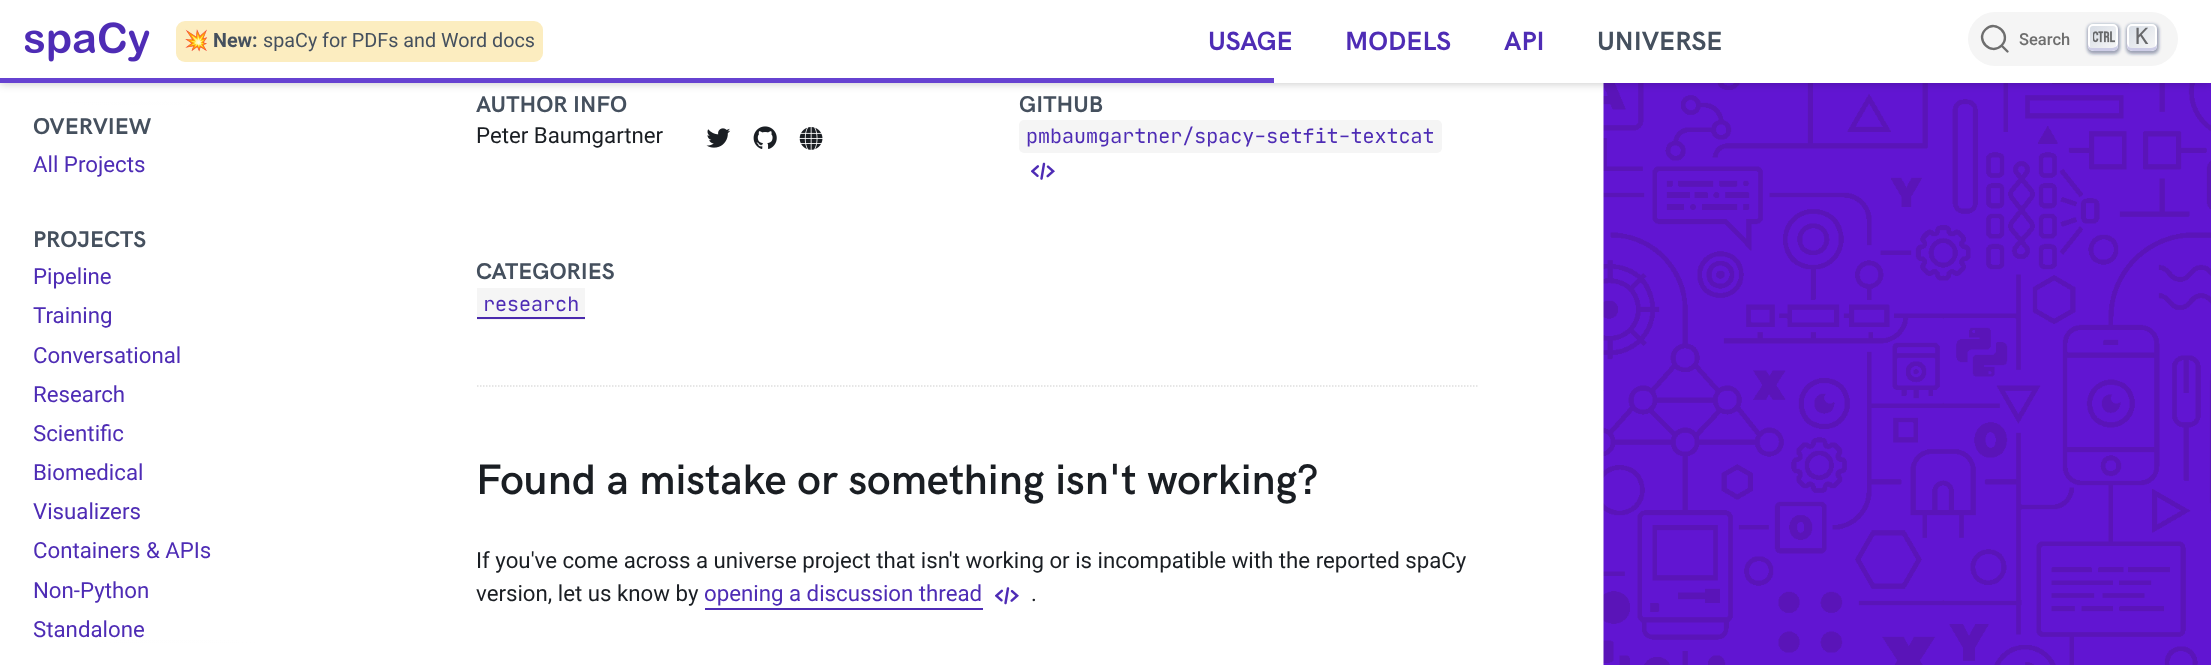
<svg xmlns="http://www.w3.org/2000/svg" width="2211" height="665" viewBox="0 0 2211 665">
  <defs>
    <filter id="blur1" x="-50%" y="-200%" width="200%" height="500%"><feGaussianBlur stdDeviation="4"/></filter>
    <filter id="blur2" x="-50%" y="-200%" width="200%" height="500%"><feGaussianBlur stdDeviation="1.5"/></filter>
    <linearGradient id="g1" gradientUnits="userSpaceOnUse" x1="2089" y1="23" x2="2117" y2="52"><stop offset="0" stop-color="#d5dbe4"/><stop offset="1" stop-color="#f8f8f8"/></linearGradient>
    <linearGradient id="g2" gradientUnits="userSpaceOnUse" x1="2128" y1="23" x2="2156" y2="52"><stop offset="0" stop-color="#d5dbe4"/><stop offset="1" stop-color="#f8f8f8"/></linearGradient>
    <radialGradient id="g3" gradientUnits="userSpaceOnUse" cx="0" cy="0" r="1" gradientTransform="matrix(176 0 0 23 176 662)"><stop offset="0" stop-color="#cccccc"/><stop offset="1" stop-color="#ffffff"/></radialGradient>
    <radialGradient id="g4" gradientUnits="userSpaceOnUse" cx="0" cy="0" r="1" gradientTransform="matrix(176 0 0 23 146 83)"><stop offset="0" stop-color="#cccccc"/><stop offset="1" stop-color="#ffffff"/></radialGradient>
    <linearGradient id="g5" gradientUnits="userSpaceOnUse" x1="176" y1="602" x2="176" y2="662"><stop offset="0" stop-color="#ffffff" stop-opacity="0"/><stop offset="0.7" stop-color="#ffffff"/></linearGradient>
    <linearGradient id="g6" gradientUnits="userSpaceOnUse" x1="176" y1="82" x2="176" y2="143"><stop offset="0.3" stop-color="#ffffff"/><stop offset="1" stop-color="#ffffff" stop-opacity="0"/></linearGradient>
  </defs>
  <rect width="100%" height="100%" fill="#ffffff"/>
  <image x="1603" y="83" width="608" height="582" href="img8.png"/>
  <rect x="0" y="2" width="2211" height="82" fill="#000000" fill-opacity="0.2" filter="url(#blur1)"/>
  <rect x="0" y="0" width="2211" height="83" fill="#ffffff"/>
  <image x="24" y="22" width="126" height="40" href="img1.png"/>
  <rect x="176" y="21" width="367" height="41" rx="9" fill="#fcedc0"/>
  <text x="184" y="47" font-family="Noto Color Emoji" font-size="19.75" fill="#45505e">💥</text>
  <text x="213" y="47" font-family="Roboto" font-size="19.75" font-weight="bold" fill="#45505e">New:</text>
  <text x="263" y="47" font-family="Roboto" font-size="19.75" fill="#45505e">spaCy for PDFs and Word docs</text>
  <text x="1208" y="50" font-family="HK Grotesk" font-size="26.5" font-weight="bold" fill="#4e2cb5">USAGE</text>
  <text x="1345" y="50" font-family="HK Grotesk" font-size="26.5" font-weight="bold" fill="#4e2cb5">MODELS</text>
  <text x="1504" y="50" font-family="HK Grotesk" font-size="26.5" font-weight="bold" fill="#4e2cb5">API</text>
  <text x="1597" y="50" font-family="HK Grotesk" font-size="26.5" font-weight="bold" fill="#45505e">UNIVERSE</text>
  <rect x="1968" y="12" width="210" height="54" rx="27" fill="#f5f5f5"/>
  <path d="M2001.5 45.5L2007.5 51.5L2001.5 45.5C1991 56 1975 40 1985.5 29.5C1996 19 2012 35 2001.5 45.5Z" fill="none" stroke="#6e6e6e" stroke-width="2.4" stroke-linecap="round" stroke-linejoin="round"/>
  <text x="2019" y="45" font-family="Roboto" font-size="16.5" font-weight="500" fill="#6e6e6e">Search</text>
  <rect x="2087" y="24" width="33" height="30" rx="6" fill="#1e235a" fill-opacity="0.4" filter="url(#blur2)"/>
  <rect x="2089" y="25" width="28" height="25" rx="4" fill="url(#g1)" stroke="#ffffff" stroke-width="2"/>
  <path d="M2118 43.5C2117.5 46.5 2115.5 48 2110 48H2092C2089.5 48 2088.5 46.5 2088 44C2088 50.5 2090.5 51 2096.5 51H2109.5C2116 51 2118 50.5 2118 43.5Z" fill="#cdcde6"/>
  <image x="2093" y="31" width="22" height="12" href="img2.png"/>
  <rect x="2126" y="24" width="33" height="30" rx="6" fill="#1e235a" fill-opacity="0.4" filter="url(#blur2)"/>
  <rect x="2128" y="25" width="28" height="25" rx="4" fill="url(#g2)" stroke="#ffffff" stroke-width="2"/>
  <path d="M2157 43.5C2156.5 46.5 2154.5 48 2149 48H2132C2129 48 2127.5 46 2127 43.5C2127 50 2128.5 51 2135.5 51H2148.5C2155 51 2157 50.5 2157 43.5Z" fill="#cdcde6"/>
  <text x="2135" y="44" font-family="DejaVu Sans Mono" font-size="22.25" fill="#67686b">K</text>
  <rect x="0" y="78" width="1274" height="5" fill="#6642d1"/>
  <rect x="87" y="640" width="178" height="4" fill="url(#g3)"/>
  <rect x="57" y="101" width="178" height="4" fill="url(#g4)"/>
  <rect x="87" y="640" width="178" height="4" fill="url(#g5)"/>
  <rect x="57" y="101" width="178" height="4" fill="url(#g6)"/>
  <text x="33" y="134" font-family="HK Grotesk" font-size="23" font-weight="bold" fill="#45505e">OVERVIEW</text>
  <text x="33" y="172" font-family="Roboto" font-size="22.25" fill="#4e2cb5">All Projects</text>
  <text x="33" y="247" font-family="HK Grotesk" font-size="23" font-weight="bold" fill="#45505e">PROJECTS</text>
  <text x="33" y="284" font-family="Roboto" font-size="22.25" fill="#4e2cb5">Pipeline</text>
  <text x="33" y="323" font-family="Roboto" font-size="22.25" fill="#4e2cb5">Training</text>
  <text x="33" y="363" font-family="Roboto" font-size="22.25" fill="#4e2cb5">Conversational</text>
  <text x="33" y="402" font-family="Roboto" font-size="22.25" fill="#4e2cb5">Research</text>
  <text x="33" y="441" font-family="Roboto" font-size="22.25" fill="#4e2cb5">Scientific</text>
  <text x="33" y="480" font-family="Roboto" font-size="22.25" fill="#4e2cb5">Biomedical</text>
  <text x="33" y="519" font-family="Roboto" font-size="22.25" fill="#4e2cb5">Visualizers</text>
  <text x="33" y="558" font-family="Roboto" font-size="22.25" fill="#4e2cb5">Containers &amp; APIs</text>
  <text x="33" y="598" font-family="Roboto" font-size="22.25" fill="#4e2cb5">Non-Python</text>
  <text x="33" y="637" font-family="Roboto" font-size="22.25" fill="#4e2cb5">Standalone</text>
  <path d="M477 386H1479" fill="none" stroke="#dedede" stroke-width="1.5" stroke-dasharray="1.5 1.5"/>
  <text x="476" y="112" font-family="HK Grotesk" font-size="23" font-weight="bold" fill="#45505e">AUTHOR INFO</text>
  <text x="476" y="143" font-family="Roboto" font-size="22.25" fill="#1a1e23">Peter Baumgartner</text>
  <image x="706" y="128" width="25" height="20" href="img3.png"/>
  <image x="753" y="126" width="24" height="23" href="img4.png"/>
  <image x="799" y="127" width="24" height="23" href="img5.png"/>
  <text x="1019" y="112" font-family="HK Grotesk" font-size="23" font-weight="bold" fill="#45505e">GITHUB</text>
  <rect x="1019" y="120" width="423" height="33" rx="5" fill="#f5f5f5"/>
  <text x="1026" y="143" font-family="JetBrains Mono" font-size="20.05" fill="#4e2cb5">pmbaumgartner/spacy-setfit-textcat</text>
  <image x="1031" y="162" width="24" height="18" href="img6.png"/>
  <text x="476" y="279" font-family="HK Grotesk" font-size="23" font-weight="bold" fill="#45505e">CATEGORIES</text>
  <rect x="477" y="317" width="108" height="2" fill="#4e2cb5"/>
  <rect x="477" y="288" width="108" height="32" fill="#000000" fill-opacity="0.04"/>
  <text x="483" y="311" font-family="JetBrains Mono" font-size="20.05" fill="#4e2cb5">research</text>
  <text x="476" y="494" font-family="HK Grotesk" font-size="42.9" font-weight="600" fill="#1a1e23">Found a mistake or something isn't working?</text>
  <text x="476" y="568" font-family="Roboto" font-size="22.25" fill="#1a1e23">If you've come across a universe project that isn't working or is incompatible with the reported spaCy</text>
  <text x="476" y="601" font-family="Roboto" font-size="22.25" fill="#1a1e23">version, let us know by</text>
  <text x="704" y="601" font-family="Roboto" font-size="22.25" fill="#4e2cb5">opening a discussion thread</text>
  <rect x="705" y="608" width="278" height="2" fill="#4e2cb5"/>
  <image x="995" y="587" width="24" height="18" href="img7.png"/>
  <text x="1031" y="601" font-family="Roboto" font-size="22.25" fill="#1a1e23">.</text>
</svg>
